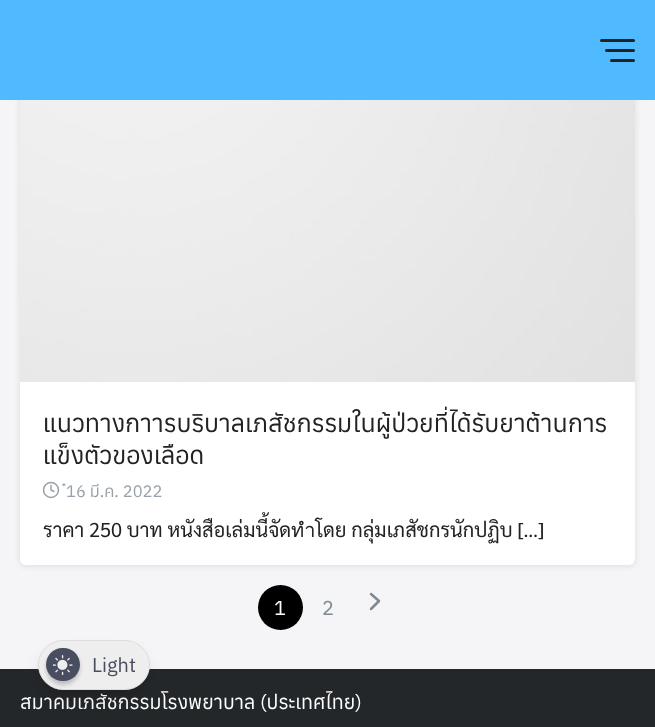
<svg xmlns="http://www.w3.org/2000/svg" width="655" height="727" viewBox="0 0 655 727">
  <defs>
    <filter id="blur1" x="-50%" y="-200%" width="200%" height="500%"><feGaussianBlur stdDeviation="3"/></filter>
    <clipPath id="clip1"><rect x="43" y="481" width="17" height="18"/></clipPath>
    <filter id="blur2" x="-50%" y="-200%" width="200%" height="500%"><feGaussianBlur stdDeviation="4"/></filter>
    <filter id="blur3" x="-50%" y="-200%" width="200%" height="500%"><feGaussianBlur stdDeviation="9.5"/></filter>
    <filter id="blur4" x="-50%" y="-200%" width="200%" height="500%"><feGaussianBlur stdDeviation="2"/></filter>
  </defs>
  <rect width="100%" height="100%" fill="#f5f5f7"/>
  <rect x="20" y="61" width="615" height="505" rx="6" fill="#000000" fill-opacity="0.1" filter="url(#blur1)"/>
  <rect x="20" y="60" width="615" height="505" rx="6" fill="#ffffff"/>
  <rect x="0" y="0" width="655" height="100" fill="#4fbaff"/>
  <rect x="605" y="49" width="30" height="3" rx="1.5" fill="#222222"/>
  <rect x="600" y="39" width="35" height="3" rx="1.5" fill="#222222"/>
  <rect x="610" y="59" width="25" height="3" rx="1.5" fill="#222222"/>
  <image x="20" y="100" width="615" height="282" href="img1.png"/>
  <text x="43" y="432" font-family="Anuphan" font-size="25" fill="#222222">แนวทางกาารบริบาลเภสัชกรรมในผู้ป่วยที่ได้รับยาต้านการ</text>
  <text x="43" y="464" font-family="Anuphan" font-size="25" fill="#222222">แข็งตัวของเลือด</text>
  <text x="66" y="497" font-family="Anuphan" font-size="16.5" fill="#98a1a9">๋16 มี.ค. 2022</text>
  <g clip-path="url(#clip1)">
    <circle cx="51" cy="490" r="7.5" fill="none" stroke="#98a1a9" stroke-width="1.5"/>
  </g>
  <path d="M51 485.5V490L54 491.5" fill="none" stroke="#98a1a9" stroke-width="1.5" stroke-linecap="round" stroke-linejoin="round"/>
  <text x="43" y="537" font-family="Sarabun" font-size="20" fill="#222222">ราคา 250 บาท หนังสือเล่มนี้จัดทำโดย กลุ่มเภสัชกรนักปฏิบ […]</text>
  <circle cx="280.5" cy="607.5" r="22.5" fill="#000000"/>
  <text x="274" y="615" font-family="Anuphan" font-size="20" fill="#ffffff">1</text>
  <text x="322" y="615" font-family="Anuphan" font-size="20" fill="#7e8993">2</text>
  <path d="M371 609L379 601L371 594" fill="none" stroke="#7e8993" stroke-width="2.5" stroke-linecap="round" stroke-linejoin="round"/>
  <rect x="0" y="669" width="655" height="58" fill="#242729"/>
  <text x="20" y="709" font-family="Anuphan" font-size="19.7" fill="#ffffff">สมาคมเภสัชกรรมโรงพยาบาล (ประเทศไทย)</text>
  <rect x="40" y="648" width="108" height="45" rx="22.5" fill="#000000" fill-opacity="0.05" filter="url(#blur2)"/>
  <rect x="41" y="656" width="105" height="43" rx="21.5" fill="#000000" fill-opacity="0.1" filter="url(#blur3)"/>
  <rect x="38.5" y="640.5" width="111" height="49" rx="24.5" fill="#eeeeee" stroke="#dddddd"/>
  <rect x="46" y="651" width="34" height="34" rx="17" fill="#000000" fill-opacity="0.2" filter="url(#blur4)"/>
  <rect x="46" y="648" width="34" height="33" rx="16.5" fill="#484d60"/>
  <image x="53" y="655" width="20" height="20" href="img2.png"/>
  <text x="92" y="672" font-family="Anuphan" font-size="20" fill="#484d60">Light</text>
</svg>
